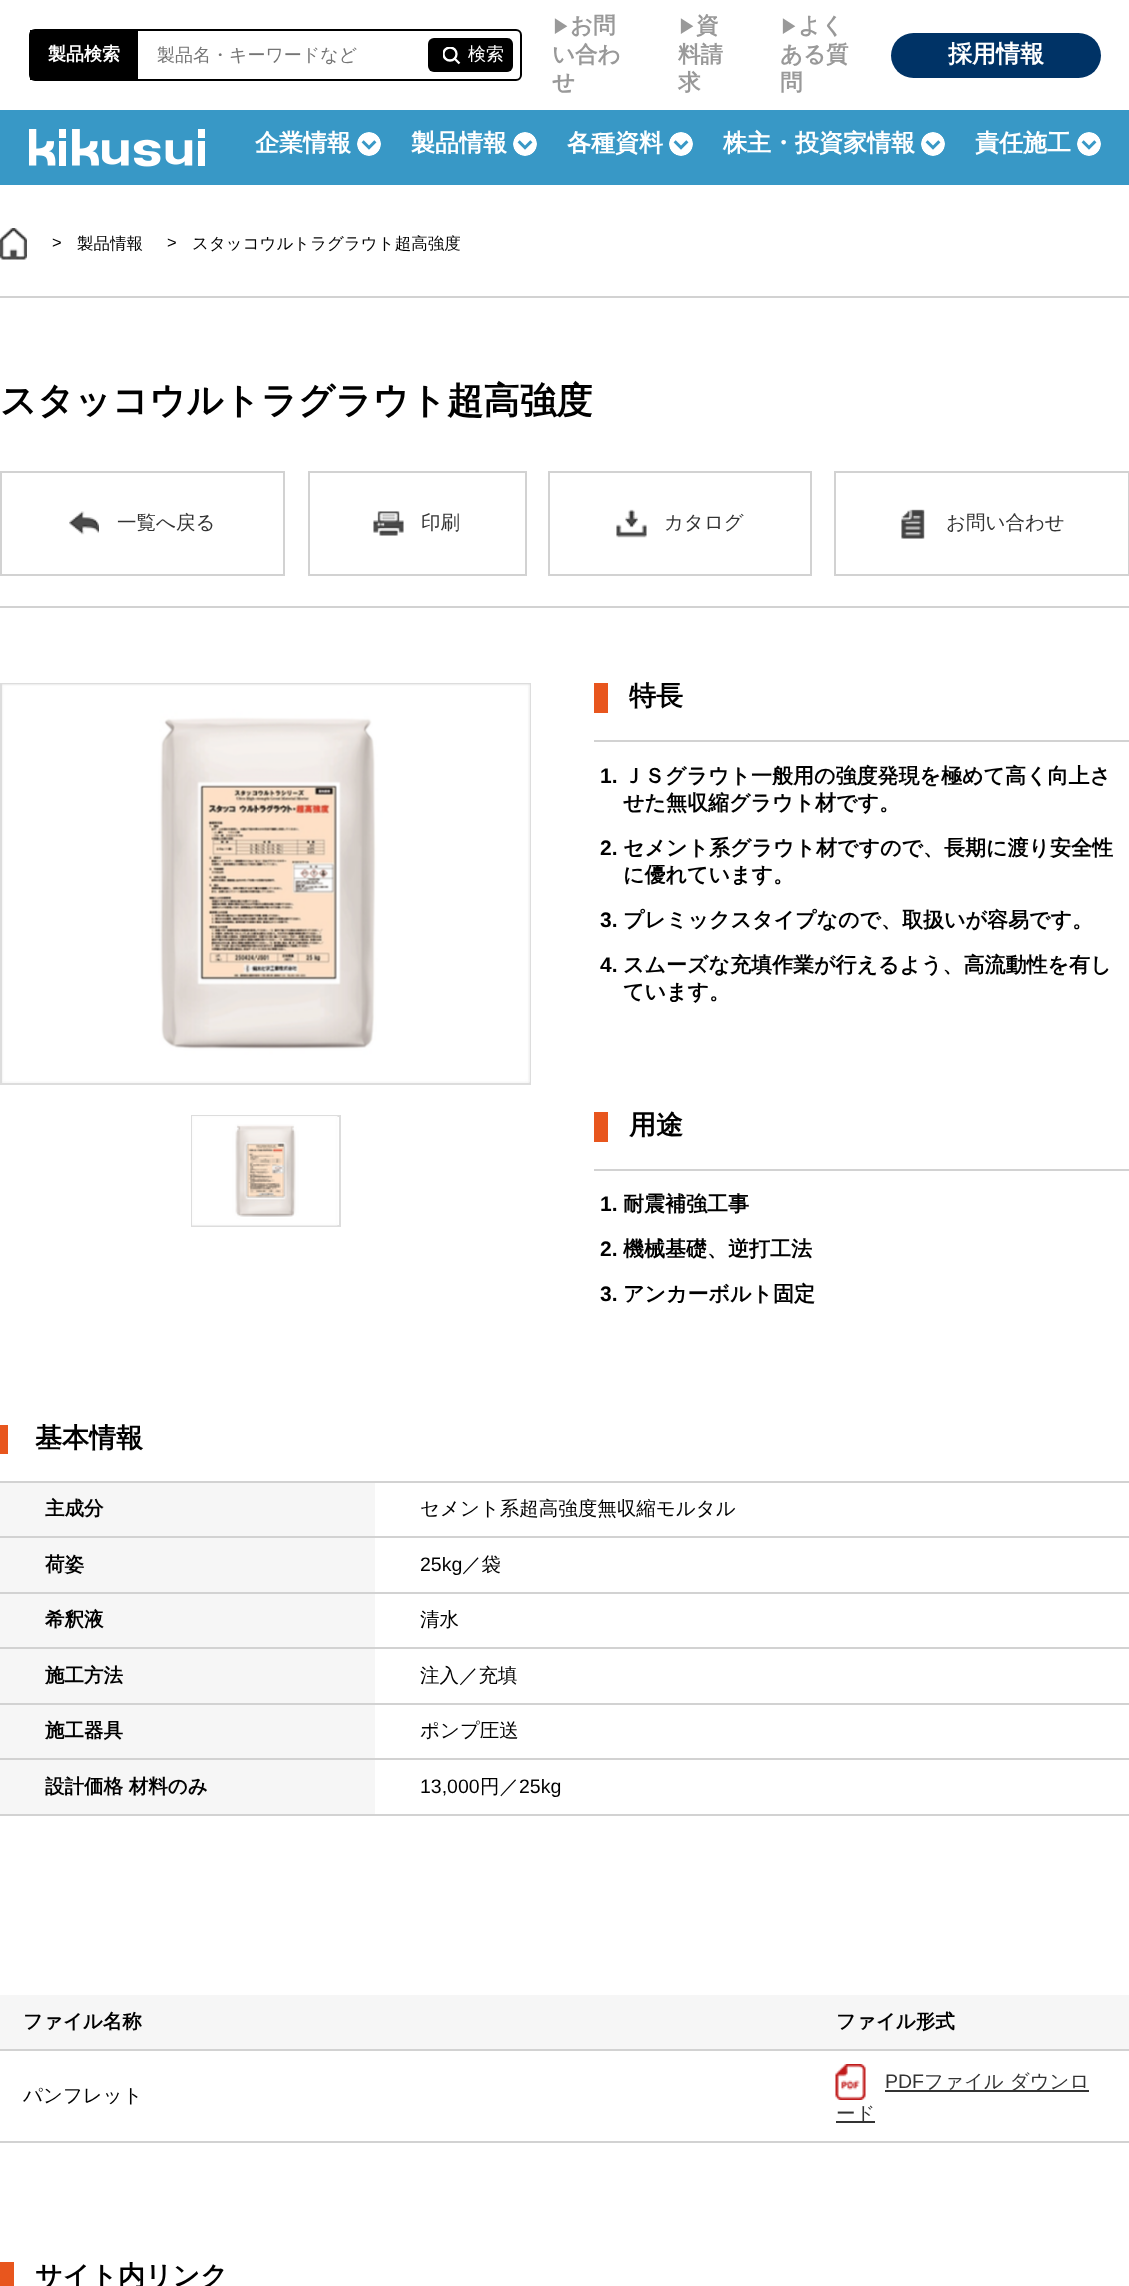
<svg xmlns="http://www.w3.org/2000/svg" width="1129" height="2286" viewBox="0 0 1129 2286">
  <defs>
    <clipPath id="clip1"><rect x="443" y="47" width="18" height="18"/></clipPath>
  </defs>
  <rect width="100%" height="100%" fill="#ffffff"/>
  <rect x="30" y="30" width="491" height="50" rx="5" fill="none" stroke="#000000" stroke-width="2"/>
  <rect x="30" y="30" width="108" height="50" fill="#000000"/>
  <text x="48" y="60" font-family="WenQuanYi Zen Hei" font-size="18" font-weight="bold" fill="#ffffff">製品検索</text>
  <text x="157" y="61" font-family="WenQuanYi Zen Hei" font-size="18" font-weight="500" fill="#757575">製品名・キーワードなど</text>
  <rect x="428" y="38" width="85" height="34" rx="6" fill="#000000"/>
  <path d="M455 59L459.5 63.5" fill="none" stroke="#ffffff" stroke-width="2.3"/>
  <g clip-path="url(#clip1)">
    <circle cx="450" cy="54" r="6.5" fill="none" stroke="#ffffff" stroke-width="2.3"/>
  </g>
  <text x="468" y="60" font-family="WenQuanYi Zen Hei" font-size="18" font-weight="500" fill="#ffffff">検索</text>
  <text x="552" y="33" font-family="WenQuanYi Zen Hei" font-size="18" font-weight="bold" fill="#999999">▶</text>
  <text x="570" y="33" font-family="WenQuanYi Zen Hei" font-size="22.5" font-weight="bold" fill="#999999">お問</text>
  <text x="552" y="62" font-family="WenQuanYi Zen Hei" font-size="22.5" font-weight="bold" fill="#999999">い合わ</text>
  <text x="552" y="90" font-family="WenQuanYi Zen Hei" font-size="22.5" font-weight="bold" fill="#999999">せ</text>
  <text x="678" y="33" font-family="WenQuanYi Zen Hei" font-size="18" font-weight="bold" fill="#999999">▶</text>
  <text x="696" y="33" font-family="WenQuanYi Zen Hei" font-size="22.5" font-weight="bold" fill="#999999">資</text>
  <text x="678" y="62" font-family="WenQuanYi Zen Hei" font-size="22.5" font-weight="bold" fill="#999999">料請</text>
  <text x="678" y="90" font-family="WenQuanYi Zen Hei" font-size="22.5" font-weight="bold" fill="#999999">求</text>
  <text x="780" y="33" font-family="WenQuanYi Zen Hei" font-size="18" font-weight="bold" fill="#999999">▶</text>
  <text x="798" y="33" font-family="WenQuanYi Zen Hei" font-size="22.5" font-weight="bold" fill="#999999">よく</text>
  <text x="780" y="62" font-family="WenQuanYi Zen Hei" font-size="22.5" font-weight="bold" fill="#999999">ある質</text>
  <text x="780" y="90" font-family="WenQuanYi Zen Hei" font-size="22.5" font-weight="bold" fill="#999999">問</text>
  <rect x="891" y="33" width="210" height="45" rx="22.5" fill="#003366"/>
  <text x="948" y="62" font-family="WenQuanYi Zen Hei" font-size="24" font-weight="bold" fill="#ffffff">採用情報</text>
  <rect x="0" y="110" width="1129" height="75" fill="#3898c6"/>
  <image x="29" y="129" width="176" height="38" href="img1.png"/>
  <text x="255" y="151" font-family="WenQuanYi Zen Hei" font-size="24" font-weight="bold" fill="#ffffff">企業情報</text>
  <image x="357" y="132" width="24" height="24" href="img2.png"/>
  <text x="411" y="151" font-family="WenQuanYi Zen Hei" font-size="24" font-weight="bold" fill="#ffffff">製品情報</text>
  <image x="513" y="132" width="24" height="24" href="img2.png"/>
  <text x="567" y="151" font-family="WenQuanYi Zen Hei" font-size="24" font-weight="bold" fill="#ffffff">各種資料</text>
  <image x="669" y="132" width="24" height="24" href="img2.png"/>
  <text x="723" y="151" font-family="WenQuanYi Zen Hei" font-size="24" font-weight="bold" fill="#ffffff">株主・投資家情報</text>
  <image x="921" y="132" width="24" height="24" href="img2.png"/>
  <text x="975" y="151" font-family="WenQuanYi Zen Hei" font-size="24" font-weight="bold" fill="#ffffff">責任施工</text>
  <image x="1077" y="132" width="24" height="24" href="img2.png"/>
  <rect x="0" y="296" width="1129" height="2" fill="#d2d2d2"/>
  <image x="0" y="228" width="27" height="32" href="img3.png"/>
  <text x="52" y="248" font-family="Liberation Sans" font-size="16.5" fill="#000000">&gt;</text>
  <text x="77" y="249" font-family="WenQuanYi Zen Hei" font-size="16.5" font-weight="500" fill="#000000">製品情報</text>
  <text x="167" y="248" font-family="Liberation Sans" font-size="16.5" fill="#000000">&gt;</text>
  <text x="192" y="249" font-family="WenQuanYi Zen Hei" font-size="16.5" font-weight="500" fill="#000000">スタッコウルトラグラウト超高強度</text>
  <rect x="0" y="606" width="1129" height="2" fill="#d2d2d2"/>
  <text x="0" y="413" font-family="WenQuanYi Zen Hei" font-size="36.4" font-weight="bold" fill="#000000">スタッコウルトラグラウト超高強度</text>
  <rect x="1" y="472" width="283" height="103" fill="none" stroke="#d2d2d2" stroke-width="2"/>
  <image x="69" y="511" width="30" height="24" href="img4.png"/>
  <text x="117" y="529" font-family="WenQuanYi Zen Hei" font-size="19.5" font-weight="500" fill="#333333">一覧へ戻る</text>
  <rect x="309" y="472" width="217" height="103" fill="none" stroke="#d2d2d2" stroke-width="2"/>
  <image x="373" y="511" width="31" height="25" href="img5.png"/>
  <text x="421" y="529" font-family="WenQuanYi Zen Hei" font-size="19.5" font-weight="500" fill="#333333">印刷</text>
  <rect x="549" y="472" width="262" height="103" fill="none" stroke="#d2d2d2" stroke-width="2"/>
  <image x="616" y="509" width="31" height="29" href="img6.png"/>
  <text x="664" y="529" font-family="WenQuanYi Zen Hei" font-size="19.5" font-weight="500" fill="#333333">カタログ</text>
  <rect x="835" y="472" width="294" height="103" fill="none" stroke="#d2d2d2" stroke-width="2"/>
  <image x="901" y="509" width="24" height="30" href="img7.png"/>
  <text x="946" y="529" font-family="WenQuanYi Zen Hei" font-size="19.5" font-weight="500" fill="#333333">お問い合わせ</text>
  <rect x="1" y="684" width="529" height="400" fill="none" stroke="#dddddd" stroke-width="2"/>
  <image x="2" y="684" width="528" height="399" href="img8.png"/>
  <rect x="192" y="1116" width="148" height="110" fill="none" stroke="#dddddd" stroke-width="2"/>
  <image x="192" y="1116" width="146" height="110" href="img9.png"/>
  <rect x="594" y="683" width="14" height="30" fill="#e8561e"/>
  <text x="629" y="705" font-family="WenQuanYi Zen Hei" font-size="27" font-weight="bold" fill="#000000">特長</text>
  <rect x="594" y="740" width="535" height="2" fill="#d2d2d2"/>
  <text x="600" y="783" font-family="Liberation Sans" font-size="21" font-weight="bold" fill="#000000">1.</text>
  <text x="623" y="783" font-family="WenQuanYi Zen Hei" font-size="21" font-weight="bold" fill="#000000">ＪＳグラウト一般用の強度発現を極めて高く向上さ</text>
  <text x="623" y="810" font-family="WenQuanYi Zen Hei" font-size="21" font-weight="bold" fill="#000000">せた無収縮グラウト材です。</text>
  <text x="600" y="855" font-family="Liberation Sans" font-size="21" font-weight="bold" fill="#000000">2.</text>
  <text x="623" y="855" font-family="WenQuanYi Zen Hei" font-size="21" font-weight="bold" fill="#000000">セメント系グラウト材ですので、長期に渡り安全性</text>
  <text x="623" y="882" font-family="WenQuanYi Zen Hei" font-size="21" font-weight="bold" fill="#000000">に優れています。</text>
  <text x="600" y="927" font-family="Liberation Sans" font-size="21" font-weight="bold" fill="#000000">3.</text>
  <text x="623" y="927" font-family="WenQuanYi Zen Hei" font-size="21" font-weight="bold" fill="#000000">プレミックスタイプなので、取扱いが容易です。</text>
  <text x="600" y="972" font-family="Liberation Sans" font-size="21" font-weight="bold" fill="#000000">4.</text>
  <text x="623" y="972" font-family="WenQuanYi Zen Hei" font-size="21" font-weight="bold" fill="#000000">スムーズな充填作業が行えるよう、高流動性を有し</text>
  <text x="623" y="999" font-family="WenQuanYi Zen Hei" font-size="21" font-weight="bold" fill="#000000">ています。</text>
  <rect x="594" y="1112" width="14" height="30" fill="#e8561e"/>
  <text x="629" y="1134" font-family="WenQuanYi Zen Hei" font-size="27" font-weight="bold" fill="#000000">用途</text>
  <rect x="594" y="1169" width="535" height="2" fill="#d2d2d2"/>
  <text x="600" y="1211" font-family="Liberation Sans" font-size="21" font-weight="bold" fill="#000000">1.</text>
  <text x="623" y="1211" font-family="WenQuanYi Zen Hei" font-size="21" font-weight="bold" fill="#000000">耐震補強工事</text>
  <text x="600" y="1256" font-family="Liberation Sans" font-size="21" font-weight="bold" fill="#000000">2.</text>
  <text x="623" y="1256" font-family="WenQuanYi Zen Hei" font-size="21" font-weight="bold" fill="#000000">機械基礎、逆打工法</text>
  <text x="600" y="1301" font-family="Liberation Sans" font-size="21" font-weight="bold" fill="#000000">3.</text>
  <text x="623" y="1301" font-family="WenQuanYi Zen Hei" font-size="21" font-weight="bold" fill="#000000">アンカーボルト固定</text>
  <rect x="0" y="1425" width="8" height="29" fill="#e8561e"/>
  <text x="35" y="1447" font-family="WenQuanYi Zen Hei" font-size="27" font-weight="bold" fill="#000000">基本情報</text>
  <rect x="0" y="1483" width="375" height="53" fill="#f6f6f6"/>
  <text x="45" y="1515" font-family="WenQuanYi Zen Hei" font-size="19.5" font-weight="bold" fill="#000000">主成分</text>
  <rect x="0" y="1481" width="1129" height="2" fill="#d2d2d2"/>
  <rect x="0" y="1536" width="1129" height="2" fill="#d2d2d2"/>
  <text x="420" y="1515" font-family="WenQuanYi Zen Hei" font-size="19.5" font-weight="500" fill="#000000">セメント系超高強度無収縮モルタル</text>
  <rect x="0" y="1538" width="375" height="54" fill="#f6f6f6"/>
  <text x="45" y="1571" font-family="WenQuanYi Zen Hei" font-size="19.5" font-weight="bold" fill="#000000">荷姿</text>
  <rect x="0" y="1592" width="1129" height="2" fill="#d2d2d2"/>
  <text x="420" y="1571" font-family="Liberation Sans" font-size="19.5" fill="#000000">25kg</text>
  <text x="462" y="1571" font-family="WenQuanYi Zen Hei" font-size="19.5" font-weight="500" fill="#000000">／袋</text>
  <rect x="0" y="1594" width="375" height="53" fill="#f6f6f6"/>
  <text x="45" y="1626" font-family="WenQuanYi Zen Hei" font-size="19.5" font-weight="bold" fill="#000000">希釈液</text>
  <rect x="0" y="1647" width="1129" height="2" fill="#d2d2d2"/>
  <text x="420" y="1626" font-family="WenQuanYi Zen Hei" font-size="19.5" font-weight="500" fill="#000000">清水</text>
  <rect x="0" y="1649" width="375" height="54" fill="#f6f6f6"/>
  <text x="45" y="1682" font-family="WenQuanYi Zen Hei" font-size="19.5" font-weight="bold" fill="#000000">施工方法</text>
  <rect x="0" y="1703" width="1129" height="2" fill="#d2d2d2"/>
  <text x="420" y="1682" font-family="WenQuanYi Zen Hei" font-size="19.5" font-weight="500" fill="#000000">注入／充填</text>
  <rect x="0" y="1705" width="375" height="53" fill="#f6f6f6"/>
  <text x="45" y="1737" font-family="WenQuanYi Zen Hei" font-size="19.5" font-weight="bold" fill="#000000">施工器具</text>
  <rect x="0" y="1758" width="1129" height="2" fill="#d2d2d2"/>
  <text x="420" y="1737" font-family="WenQuanYi Zen Hei" font-size="19.5" font-weight="500" fill="#000000">ポンプ圧送</text>
  <rect x="0" y="1760" width="375" height="54" fill="#f6f6f6"/>
  <text x="45" y="1793" font-family="WenQuanYi Zen Hei" font-size="19.5" font-weight="bold" fill="#000000">設計価格 材料のみ</text>
  <rect x="0" y="1814" width="1129" height="2" fill="#d2d2d2"/>
  <text x="420" y="1793" font-family="Liberation Sans" font-size="19.5" fill="#000000">13,000</text>
  <text x="480" y="1793" font-family="WenQuanYi Zen Hei" font-size="19.5" font-weight="500" fill="#000000">円／</text>
  <text x="519" y="1793" font-family="Liberation Sans" font-size="19.5" fill="#000000">25kg</text>
  <rect x="0" y="1995" width="1129" height="54" fill="#f6f6f6"/>
  <text x="23" y="2028" font-family="WenQuanYi Zen Hei" font-size="19.5" font-weight="bold" fill="#000000">ファイル名称</text>
  <rect x="0" y="2049" width="1129" height="2" fill="#d2d2d2"/>
  <text x="836" y="2028" font-family="WenQuanYi Zen Hei" font-size="19.5" font-weight="bold" fill="#000000">ファイル形式</text>
  <text x="23" y="2102" font-family="WenQuanYi Zen Hei" font-size="19.5" font-weight="500" fill="#000000">パンフレット</text>
  <rect x="0" y="2141" width="1129" height="2" fill="#d2d2d2"/>
  <image x="835" y="2064" width="31" height="36" href="img10.png"/>
  <text x="885" y="2088" font-family="Liberation Sans" font-size="19.5" fill="#333333">PDF</text>
  <rect x="885" y="2090" width="204" height="2" fill="#333333"/>
  <text x="924" y="2088" font-family="WenQuanYi Zen Hei" font-size="19.5" font-weight="500" fill="#333333">ファイル ダウンロ</text>
  <rect x="836" y="2121" width="39" height="2" fill="#333333"/>
  <text x="836" y="2120" font-family="WenQuanYi Zen Hei" font-size="19.5" font-weight="500" fill="#333333">ード</text>
  <rect x="0" y="2262" width="14" height="24" fill="#e8561e"/>
  <text x="35" y="2285" font-family="WenQuanYi Zen Hei" font-size="27" font-weight="bold" fill="#000000">サイト内リンク</text>
</svg>
